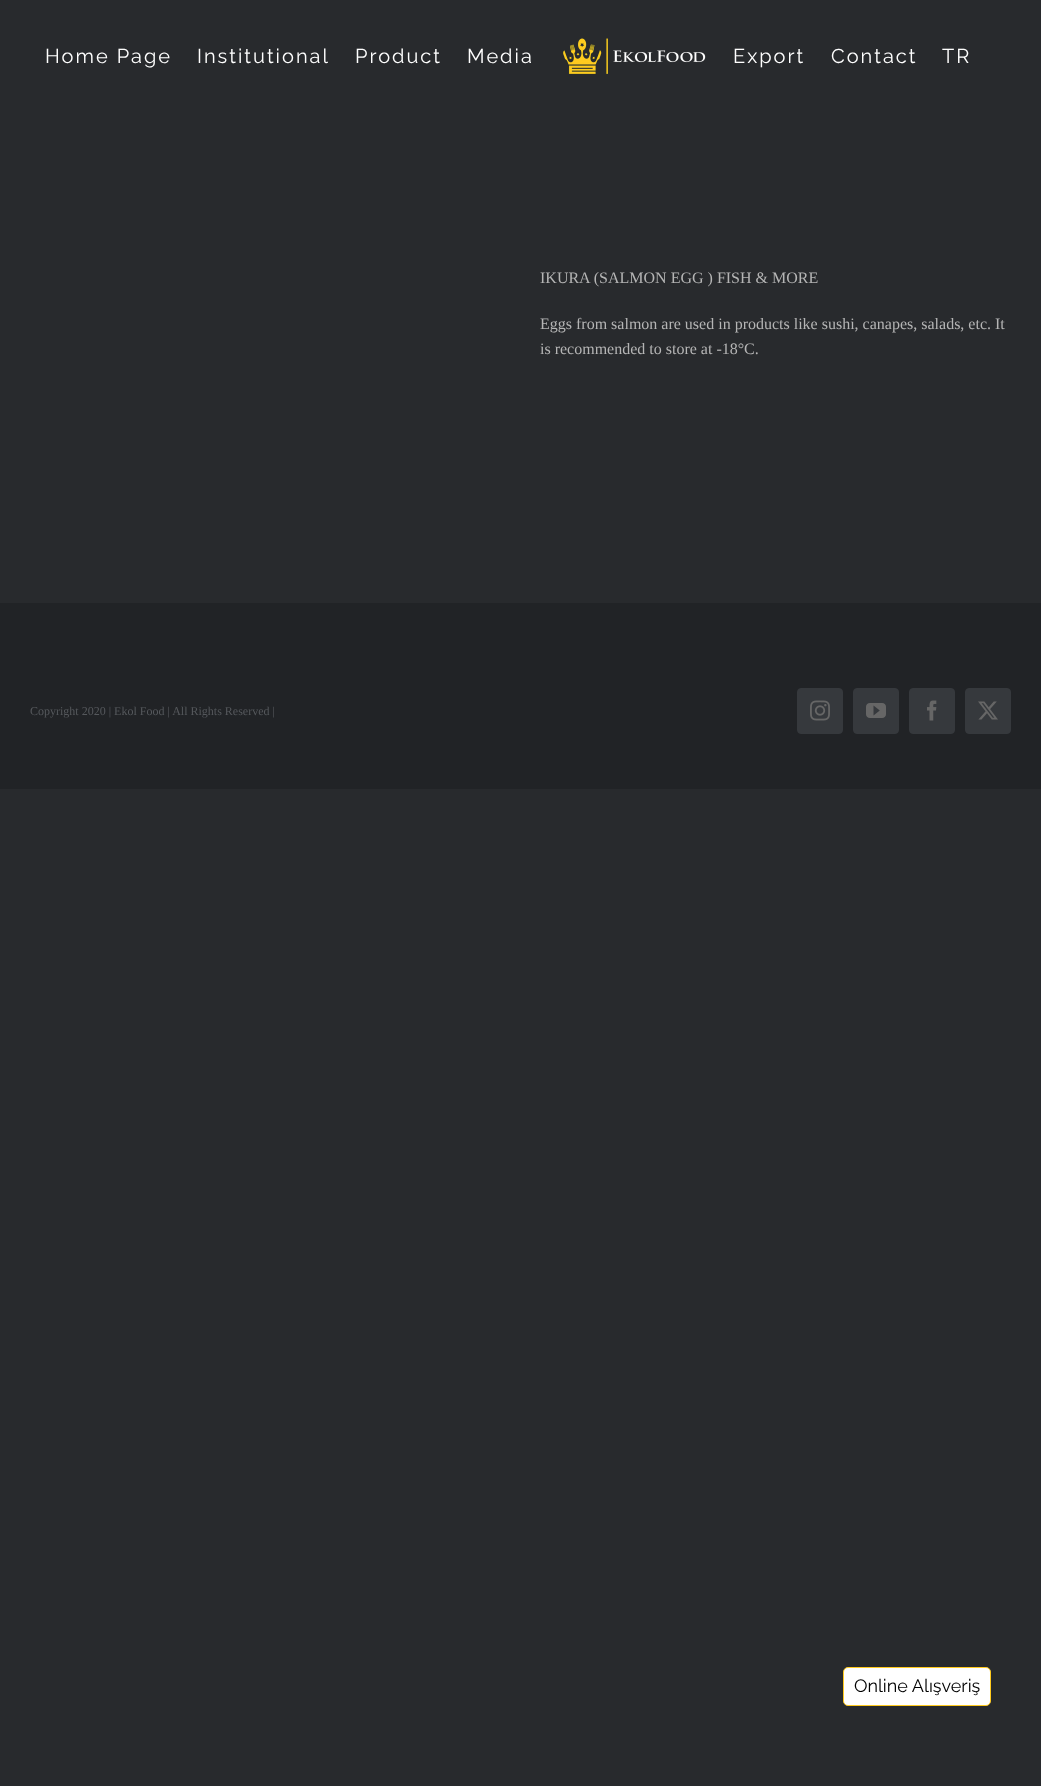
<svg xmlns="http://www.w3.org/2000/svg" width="1041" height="1786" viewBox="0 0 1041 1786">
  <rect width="100%" height="100%" fill="#282a2d"/>
  <text x="45" y="63" font-family="Raleway" font-size="20" letter-spacing="2" fill="#ffffff">Home Page</text>
  <text x="197" y="63" font-family="Raleway" font-size="20" letter-spacing="2" fill="#ffffff">Institutional</text>
  <text x="355" y="63" font-family="Raleway" font-size="20" letter-spacing="2" fill="#ffffff">Product</text>
  <text x="467" y="63" font-family="Raleway" font-size="20" letter-spacing="2" fill="#ffffff">Media</text>
  <image x="563" y="38" width="143" height="36" href="img1.png"/>
  <text x="733" y="63" font-family="Raleway" font-size="20" letter-spacing="2" fill="#ffffff">Export</text>
  <text x="831" y="63" font-family="Raleway" font-size="20" letter-spacing="2" fill="#ffffff">Contact</text>
  <text x="942" y="63" font-family="Raleway" font-size="20" letter-spacing="2" fill="#ffffff">TR</text>
  <text x="540" y="283" font-family="Liberation Serif" font-size="16" fill="#b5b5b5">IKURA (SALMON EGG ) FISH &amp; MORE</text>
  <text x="540" y="329" font-family="Liberation Serif" font-size="16" fill="#b5b5b5">Eggs from salmon are used in products like sushi, canapes, salads, etc. It</text>
  <text x="540" y="354" font-family="Liberation Serif" font-size="16" fill="#b5b5b5">is recommended to store at -18°C.</text>
  <rect x="0" y="603" width="1041" height="186" fill="#212326"/>
  <text x="30" y="715" font-family="Liberation Serif" font-size="12" fill="#55585c">Copyright 2020 | Ekol Food | All Rights Reserved |</text>
  <rect x="797.5" y="688.5" width="45" height="45" rx="3.5" fill="#36393d" stroke="#36393d"/>
  <image x="810" y="700" width="20" height="21" href="img2.png"/>
  <rect x="853.5" y="688.5" width="45" height="45" rx="3.5" fill="#36393d" stroke="#36393d"/>
  <image x="866" y="703" width="20" height="15" href="img3.png"/>
  <rect x="909.5" y="688.5" width="45" height="45" rx="3.5" fill="#36393d" stroke="#36393d"/>
  <image x="927" y="700" width="10" height="21" href="img4.png"/>
  <rect x="965.5" y="688.5" width="45" height="45" rx="3.5" fill="#36393d" stroke="#36393d"/>
  <image x="978" y="701" width="20" height="19" href="img5.png"/>
  <rect x="843.5" y="1667.5" width="147" height="38" rx="4.5" fill="#ffffff" stroke="#ffca1e"/>
  <text x="854" y="1692" font-family="Raleway" font-size="18" fill="#000000">Online Alışveriş</text>
</svg>
